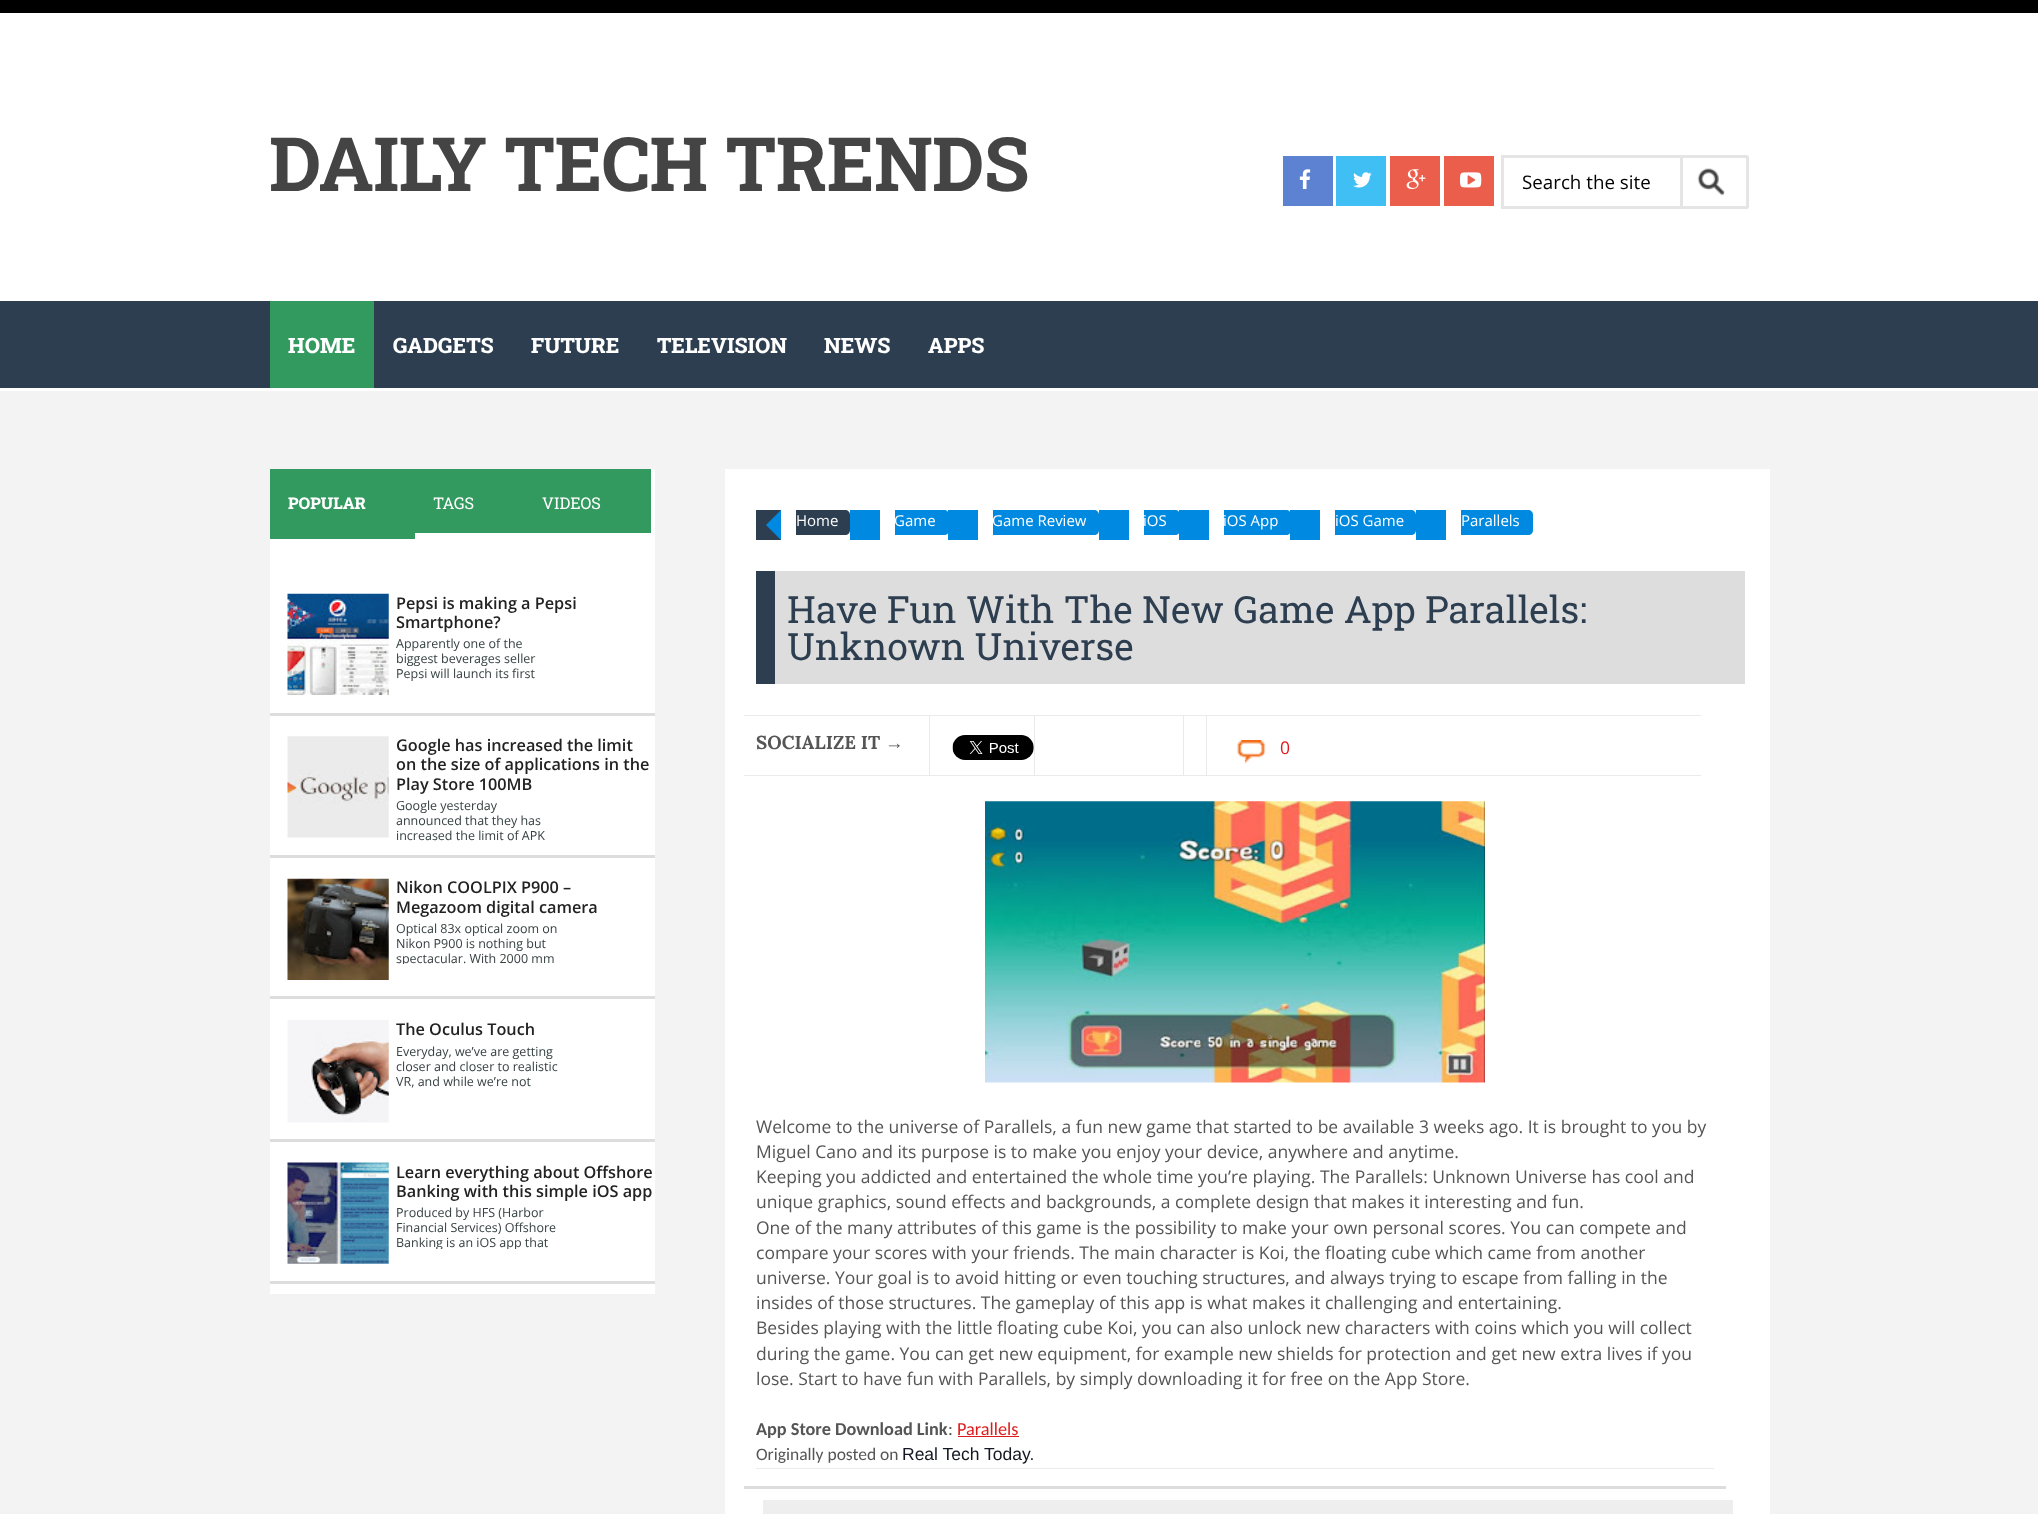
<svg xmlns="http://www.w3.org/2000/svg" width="2038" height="1514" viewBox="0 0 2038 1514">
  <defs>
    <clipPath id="clip1"><rect x="396" y="920" width="163" height="44"/></clipPath>
    <clipPath id="clip2"><rect x="396" y="1205" width="163" height="44"/></clipPath>
  </defs>
  <rect width="100%" height="100%" fill="#f3f3f3"/>
  <rect x="0" y="13" width="2038" height="288" fill="#ffffff"/>
  <rect x="0" y="0" width="2038" height="13" fill="#000000"/>
  <text x="269" y="191" font-family="Roboto Slab" font-size="75" font-weight="bold" letter-spacing="-0.6" fill="#444444">DAILY TECH TRENDS</text>
  <rect x="1283" y="156" width="50" height="50" fill="#5d82d1"/>
  <image x="1299" y="169" width="12" height="20" href="img1.png"/>
  <rect x="1336" y="156" width="50" height="50" fill="#40bff5"/>
  <image x="1353" y="172" width="19" height="16" href="img2.png"/>
  <rect x="1390" y="156" width="50" height="50" fill="#eb5e4c"/>
  <image x="1406" y="169" width="20" height="20" href="img3.png"/>
  <rect x="1444" y="156" width="50" height="50" fill="#eb5e4c"/>
  <image x="1460" y="172" width="22" height="16" href="img4.png"/>
  <rect x="1501" y="155" width="179" height="3" fill="#e5e5e5"/>
  <rect x="1501" y="206" width="179" height="3" fill="#e5e5e5"/>
  <rect x="1501" y="155" width="3" height="54" fill="#e5e5e5"/>
  <text x="1522" y="189" font-family="Open Sans" font-size="18.75" fill="#000000">Search the site</text>
  <image x="1697" y="168" width="28" height="28" href="img5.png"/>
  <path d="M1681.5 156.5H1746.5C1747 156.5 1747.5 157 1747.5 157.5V206.5C1747.5 207 1747 207.5 1746.5 207.5H1681.5Z" fill="none" stroke="#e5e5e5" stroke-width="3"/>
  <rect x="0" y="301" width="2038" height="87" fill="#2c3e50"/>
  <rect x="0" y="388" width="2038" height="3" fill="#ffffff"/>
  <rect x="270" y="301" width="104" height="87" fill="#32995f"/>
  <text x="288" y="353" font-family="Roboto Slab" font-size="21.25" font-weight="800" fill="#ffffff">HOME</text>
  <text x="393" y="353" font-family="Roboto Slab" font-size="21.25" font-weight="800" fill="#ffffff">GADGETS</text>
  <text x="531" y="353" font-family="Roboto Slab" font-size="21.25" font-weight="800" fill="#ffffff">FUTURE</text>
  <text x="657" y="353" font-family="Roboto Slab" font-size="21.25" font-weight="800" fill="#ffffff">TELEVISION</text>
  <text x="824" y="353" font-family="Roboto Slab" font-size="21.25" font-weight="800" fill="#ffffff">NEWS</text>
  <text x="928" y="353" font-family="Roboto Slab" font-size="21.25" font-weight="800" fill="#ffffff">APPS</text>
  <rect x="270" y="469" width="385" height="825" fill="#ffffff"/>
  <rect x="270" y="469" width="145" height="70" fill="#32995f"/>
  <text x="288" y="509" font-family="Roboto Slab" font-size="16.25" font-weight="800" fill="#ffffff">POPULAR</text>
  <rect x="415" y="469" width="236" height="64" fill="#32995f"/>
  <text x="433" y="509" font-family="Roboto Slab" font-size="16.25" fill="#ffffff">TAGS</text>
  <text x="542" y="509" font-family="Roboto Slab" font-size="16.25" fill="#ffffff">VIDEOS</text>
  <rect x="270" y="713" width="385" height="3" fill="#dddddd"/>
  <image x="287" y="593" width="102" height="102" href="img6.png"/>
  <text x="396" y="609" font-family="Open Sans" font-size="16.25" font-weight="600" fill="#222222">Pepsi is making a Pepsi</text>
  <text x="396" y="628" font-family="Open Sans" font-size="16.25" font-weight="600" fill="#222222">Smartphone?</text>
  <text x="396" y="648" font-family="Open Sans" font-size="12.5" fill="#374142">Apparently one of the</text>
  <text x="396" y="663" font-family="Open Sans" font-size="12.5" fill="#374142">biggest beverages seller</text>
  <text x="396" y="678" font-family="Open Sans" font-size="12.5" fill="#374142">Pepsi will launch its first</text>
  <rect x="270" y="855" width="385" height="3" fill="#dddddd"/>
  <image x="287" y="736" width="102" height="102" href="img7.png"/>
  <text x="396" y="751" font-family="Open Sans" font-size="16.25" font-weight="600" fill="#222222">Google has increased the limit</text>
  <text x="396" y="770" font-family="Open Sans" font-size="16.25" font-weight="600" fill="#222222">on the size of applications in the</text>
  <text x="396" y="790" font-family="Open Sans" font-size="16.25" font-weight="600" fill="#222222">Play Store 100MB</text>
  <text x="396" y="810" font-family="Open Sans" font-size="12.5" fill="#374142">Google yesterday</text>
  <text x="396" y="825" font-family="Open Sans" font-size="12.5" fill="#374142">announced that they has</text>
  <text x="396" y="840" font-family="Open Sans" font-size="12.5" fill="#374142">increased the limit of APK</text>
  <rect x="270" y="996" width="385" height="3" fill="#dddddd"/>
  <image x="287" y="878" width="102" height="102" href="img8.png"/>
  <text x="396" y="893" font-family="Open Sans" font-size="16.25" font-weight="600" fill="#222222">Nikon COOLPIX P900 –</text>
  <text x="396" y="913" font-family="Open Sans" font-size="16.25" font-weight="600" fill="#222222">Megazoom digital camera</text>
  <text x="396" y="933" font-family="Open Sans" font-size="12.5" fill="#374142">Optical 83x optical zoom on</text>
  <text x="396" y="948" font-family="Open Sans" font-size="12.5" fill="#374142">Nikon P900 is nothing but</text>
  <g clip-path="url(#clip1)">
    <text x="396" y="963" font-family="Open Sans" font-size="12.5" fill="#374142">spectacular. With 2000 mm</text>
  </g>
  <rect x="270" y="1139" width="385" height="3" fill="#dddddd"/>
  <image x="287" y="1020" width="102" height="103" href="img9.png"/>
  <text x="396" y="1035" font-family="Open Sans" font-size="16.25" font-weight="600" fill="#222222">The Oculus Touch</text>
  <text x="396" y="1056" font-family="Open Sans" font-size="12.5" fill="#374142">Everyday, we’ve are getting</text>
  <text x="396" y="1071" font-family="Open Sans" font-size="12.5" fill="#374142">closer and closer to realistic</text>
  <text x="396" y="1086" font-family="Open Sans" font-size="12.5" fill="#374142">VR, and while we’re not</text>
  <rect x="270" y="1281" width="385" height="3" fill="#dddddd"/>
  <image x="287" y="1162" width="102" height="102" href="img10.png"/>
  <text x="396" y="1178" font-family="Open Sans" font-size="16.25" font-weight="600" fill="#222222">Learn everything about Offshore</text>
  <text x="396" y="1197" font-family="Open Sans" font-size="16.25" font-weight="600" fill="#222222">Banking with this simple iOS app</text>
  <text x="396" y="1217" font-family="Open Sans" font-size="12.5" fill="#374142">Produced by HFS (Harbor</text>
  <text x="396" y="1232" font-family="Open Sans" font-size="12.5" fill="#374142">Financial Services) Offshore</text>
  <g clip-path="url(#clip2)">
    <text x="396" y="1247" font-family="Open Sans" font-size="12.5" fill="#374142">Banking is an iOS app that</text>
  </g>
  <rect x="725" y="469" width="1045" height="1045" fill="#ffffff"/>
  <rect x="744" y="1486" width="982" height="3" fill="#dddddd"/>
  <rect x="756" y="510" width="25" height="30" fill="#2c3e50"/>
  <path d="M796 510H845C848 510 850 512 850 515V530C850 533 848 535 845 535H796Z" fill="#2c3e50"/>
  <path d="M781 510V540L766 525Z" fill="#0089e0"/>
  <text x="796" y="526" font-family="Open Sans" font-size="15" fill="#ffffff">Home</text>
  <path d="M895 510H944C947 510 949 512 949 515V530C949 533 947 535 944 535H895Z" fill="#0089e0"/>
  <text x="894" y="526" font-family="Open Sans" font-size="15" fill="#ffffff">Game</text>
  <rect x="850" y="510" width="30" height="30" fill="#0089e0"/>
  <path d="M993 510H1094C1097 510 1099 512 1099 515V530C1099 533 1097 535 1094 535H993Z" fill="#0089e0"/>
  <text x="992" y="526" font-family="Open Sans" font-size="15" fill="#ffffff">Game Review</text>
  <rect x="948" y="510" width="30" height="30" fill="#0089e0"/>
  <path d="M1144 510H1175C1178 510 1180 512 1180 515V530C1180 533 1178 535 1175 535H1144Z" fill="#0089e0"/>
  <text x="1143" y="526" font-family="Open Sans" font-size="15" fill="#ffffff">iOS</text>
  <rect x="1099" y="510" width="30" height="30" fill="#0089e0"/>
  <path d="M1224 510H1286C1289 510 1291 512 1291 515V530C1291 533 1289 535 1286 535H1224Z" fill="#0089e0"/>
  <text x="1223" y="526" font-family="Open Sans" font-size="15" fill="#ffffff">iOS App</text>
  <rect x="1179" y="510" width="30" height="30" fill="#0089e0"/>
  <path d="M1335 510H1411C1414 510 1416 512 1416 515V530C1416 533 1414 535 1411 535H1335Z" fill="#0089e0"/>
  <text x="1335" y="526" font-family="Open Sans" font-size="15" fill="#ffffff">iOS Game</text>
  <rect x="1290" y="510" width="30" height="30" fill="#0089e0"/>
  <path d="M1461 510H1528C1531 510 1533 512 1533 515V530C1533 533 1531 535 1528 535H1461Z" fill="#0089e0"/>
  <text x="1461" y="526" font-family="Open Sans" font-size="15" fill="#ffffff">Parallels</text>
  <rect x="1416" y="510" width="30" height="30" fill="#0089e0"/>
  <rect x="775" y="571" width="970" height="113" fill="#dddddd"/>
  <rect x="756" y="571" width="19" height="113" fill="#2c3e50"/>
  <text x="787" y="623" font-family="Roboto Slab" font-size="37.5" fill="#2c3e50">Have Fun With The New Game App Parallels:</text>
  <text x="787" y="660" font-family="Roboto Slab" font-size="37.5" fill="#2c3e50">Unknown Universe</text>
  <rect x="744" y="715" width="957" height="1" fill="#eaeaea"/>
  <rect x="744" y="775" width="957" height="1" fill="#eaeaea"/>
  <text x="756" y="749" font-family="Lora" font-size="18.75" font-weight="bold" fill="#555555">SOCIALIZE IT</text>
  <text x="885" y="749" font-family="Liberation Sans" font-size="18.75" font-weight="bold" fill="#555555">→</text>
  <rect x="929" y="716" width="1" height="59" fill="#eaeaea"/>
  <image x="952" y="735" width="82" height="25" href="img11.png"/>
  <rect x="1034" y="716" width="1" height="59" fill="#eaeaea"/>
  <rect x="1183" y="716" width="1" height="59" fill="#eaeaea"/>
  <rect x="1206" y="716" width="1" height="59" fill="#eaeaea"/>
  <image x="1237" y="740" width="29" height="24" href="img12.png"/>
  <text x="1280" y="754" font-family="Open Sans" font-size="17.5" fill="#de1b1b">0</text>
  <image x="985" y="801" width="500" height="282" href="img13.png"/>
  <text x="756" y="1133" font-family="Open Sans" font-size="17.5" fill="#555555">Welcome to the universe of Parallels, a fun new game that started to be available 3 weeks ago. It is brought to you by</text>
  <text x="756" y="1158" font-family="Open Sans" font-size="17.5" fill="#555555">Miguel Cano and its purpose is to make you enjoy your device, anywhere and anytime.</text>
  <text x="756" y="1183" font-family="Open Sans" font-size="17.5" fill="#555555">Keeping you addicted and entertained the whole time you’re playing. The Parallels: Unknown Universe has cool and</text>
  <text x="756" y="1208" font-family="Open Sans" font-size="17.5" fill="#555555">unique graphics, sound effects and backgrounds, a complete design that makes it interesting and fun.</text>
  <text x="756" y="1234" font-family="Open Sans" font-size="17.5" fill="#555555">One of the many attributes of this game is the possibility to make your own personal scores. You can compete and</text>
  <text x="756" y="1259" font-family="Open Sans" font-size="17.5" fill="#555555">compare your scores with your friends. The main character is Koi, the floating cube which came from another</text>
  <text x="756" y="1284" font-family="Open Sans" font-size="17.5" fill="#555555">universe. Your goal is to avoid hitting or even touching structures, and always trying to escape from falling in the</text>
  <text x="756" y="1309" font-family="Open Sans" font-size="17.5" fill="#555555">insides of those structures. The gameplay of this app is what makes it challenging and entertaining.</text>
  <text x="756" y="1334" font-family="Open Sans" font-size="17.5" fill="#555555">Besides playing with the little floating cube Koi, you can also unlock new characters with coins which you will collect</text>
  <text x="756" y="1360" font-family="Open Sans" font-size="17.5" fill="#555555">during the game. You can get new equipment, for example new shields for protection and get new extra lives if you</text>
  <text x="756" y="1385" font-family="Open Sans" font-size="17.5" fill="#555555">lose. Start to have fun with Parallels, by simply downloading it for free on the App Store.</text>
  <text x="756" y="1435" font-family="Carlito" font-size="18.25" font-weight="bold" fill="#555555">App Store Download Link</text>
  <text x="948" y="1435" font-family="Carlito" font-size="18.25" fill="#555555">:</text>
  <text x="957" y="1435" font-family="Carlito" font-size="18.25" fill="#de1b1b">Parallels</text>
  <rect x="958" y="1436" width="61" height="1" fill="#de1b1b"/>
  <text x="756" y="1460" font-family="Carlito" font-size="17.5" fill="#555555">Originally posted on</text>
  <text x="902" y="1460" font-family="Liberation Sans" font-size="17.5" fill="#141823">Real Tech Today.</text>
  <rect x="756" y="1468" width="958" height="1" fill="#ebebeb"/>
  <rect x="763" y="1500" width="970" height="14" fill="#eeeeee"/>
</svg>
